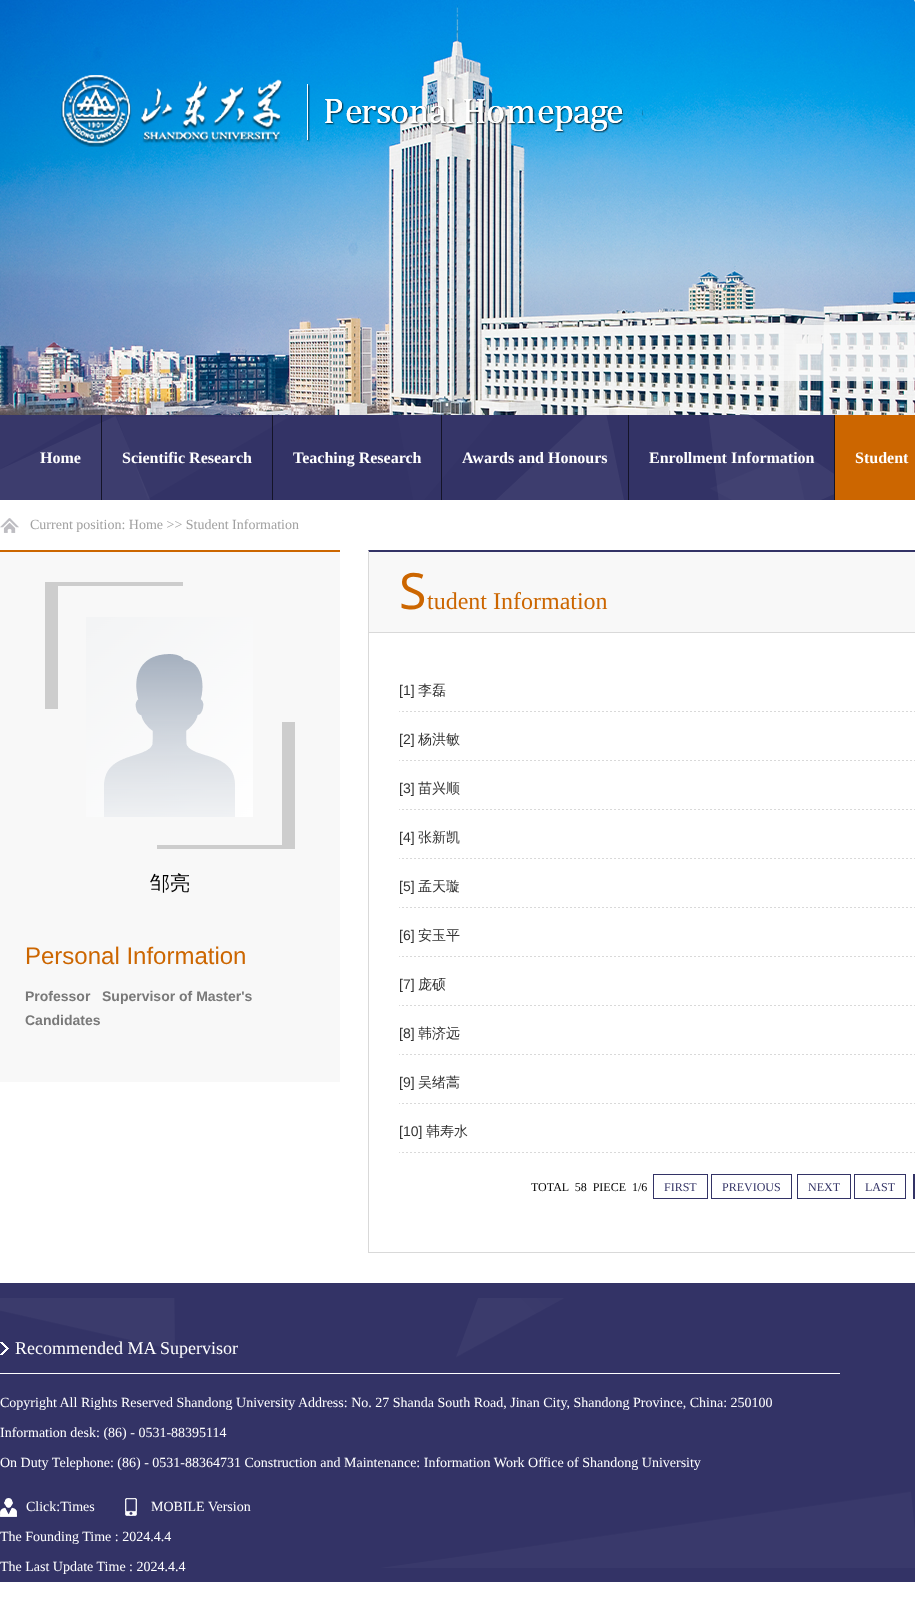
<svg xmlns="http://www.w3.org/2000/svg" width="915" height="1614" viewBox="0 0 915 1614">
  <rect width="100%" height="100%" fill="#ffffff"/>
  <image x="0" y="0" width="915" height="415" href="img1.png"/>
  <image x="914" y="0" width="1" height="2" href="img2.png"/>
  <image x="61" y="75" width="583" height="72" href="img3.png"/>
  <rect x="730" y="325" width="185" height="56" fill="#f9f9f9" fill-opacity="0.8"/>
  <image x="0" y="415" width="834" height="85" href="img4.png"/>
  <rect x="101" y="415" width="1" height="85" fill="#141428"/>
  <text x="40" y="463" font-family="Liberation Serif" font-size="16" font-weight="bold" fill="#ffffff">Home</text>
  <rect x="272" y="415" width="1" height="85" fill="#141428"/>
  <text x="122" y="463" font-family="Liberation Serif" font-size="16" font-weight="bold" fill="#ffffff">Scientific Research</text>
  <rect x="441" y="415" width="1" height="85" fill="#141428"/>
  <text x="293" y="463" font-family="Liberation Serif" font-size="16" font-weight="bold" fill="#ffffff">Teaching Research</text>
  <rect x="628" y="415" width="1" height="85" fill="#141428"/>
  <text x="462" y="463" font-family="Liberation Serif" font-size="16" font-weight="bold" fill="#ffffff">Awards and Honours</text>
  <rect x="834" y="415" width="1" height="85" fill="#141428"/>
  <text x="649" y="463" font-family="Liberation Serif" font-size="16" font-weight="bold" fill="#ffffff">Enrollment Information</text>
  <rect x="835" y="415" width="80" height="85" fill="#cc6600"/>
  <text x="855" y="463" font-family="Liberation Serif" font-size="16" font-weight="bold" fill="#ffffff">Student</text>
  <image x="0" y="518" width="19" height="15" href="img5.png"/>
  <text x="30" y="529" font-family="Liberation Serif" font-size="14" fill="#a1a1a1">Current position: Home &gt;&gt; Student Information</text>
  <rect x="0" y="552" width="340" height="530" fill="#f8f8f8"/>
  <rect x="0" y="550" width="340" height="2" fill="#cc6600"/>
  <image x="45" y="582" width="250" height="267" href="img6.png"/>
  <image x="86" y="617" width="167" height="200" href="img7.png"/>
  <text x="150" y="890" font-family="WenQuanYi Zen Hei" font-size="20" font-weight="500" fill="#000000">邹亮</text>
  <text x="25" y="964" font-family="Liberation Sans" font-size="24" fill="#cc6600">Personal Information</text>
  <text x="25" y="1001" font-family="Liberation Sans" font-size="14" font-weight="bold" fill="#797979">Professor</text>
  <text x="102" y="1001" font-family="Liberation Sans" font-size="14" font-weight="bold" fill="#797979">Supervisor of Master's</text>
  <text x="25" y="1025" font-family="Liberation Sans" font-size="14" font-weight="bold" fill="#797979">Candidates</text>
  <path d="M368 550H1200L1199 552H369Z" fill="#333366"/>
  <rect x="368" y="1252" width="547" height="1" fill="#d9d9d9"/>
  <path d="M368 1253V550L369 552V1252Z" fill="#d9d9d9"/>
  <rect x="369" y="552" width="546" height="80" fill="#f8f8f8"/>
  <rect x="369" y="632" width="546" height="1" fill="#d9d9d9"/>
  <text x="399" y="609" font-family="Noto Sans" font-size="50" fill="#cc6600">S</text>
  <text x="427" y="609" font-family="Liberation Serif" font-size="24" fill="#cc6600">tudent Information</text>
  <image x="399" y="711" width="516" height="1" href="img8.png"/>
  <text x="399" y="695" font-family="Liberation Sans" font-size="14" fill="#333333">[1]</text>
  <text x="418" y="695" font-family="WenQuanYi Zen Hei" font-size="14" font-weight="500" fill="#333333">李磊</text>
  <image x="399" y="760" width="516" height="1" href="img8.png"/>
  <text x="399" y="744" font-family="Liberation Sans" font-size="14" fill="#333333">[2]</text>
  <text x="418" y="744" font-family="WenQuanYi Zen Hei" font-size="14" font-weight="500" fill="#333333">杨洪敏</text>
  <image x="399" y="809" width="516" height="1" href="img8.png"/>
  <text x="399" y="793" font-family="Liberation Sans" font-size="14" fill="#333333">[3]</text>
  <text x="418" y="793" font-family="WenQuanYi Zen Hei" font-size="14" font-weight="500" fill="#333333">苗兴顺</text>
  <image x="399" y="858" width="516" height="1" href="img8.png"/>
  <text x="399" y="842" font-family="Liberation Sans" font-size="14" fill="#333333">[4]</text>
  <text x="418" y="842" font-family="WenQuanYi Zen Hei" font-size="14" font-weight="500" fill="#333333">张新凯</text>
  <image x="399" y="907" width="516" height="1" href="img8.png"/>
  <text x="399" y="891" font-family="Liberation Sans" font-size="14" fill="#333333">[5]</text>
  <text x="418" y="891" font-family="WenQuanYi Zen Hei" font-size="14" font-weight="500" fill="#333333">孟天璇</text>
  <image x="399" y="956" width="516" height="1" href="img8.png"/>
  <text x="399" y="940" font-family="Liberation Sans" font-size="14" fill="#333333">[6]</text>
  <text x="418" y="940" font-family="WenQuanYi Zen Hei" font-size="14" font-weight="500" fill="#333333">安玉平</text>
  <image x="399" y="1005" width="516" height="1" href="img8.png"/>
  <text x="399" y="989" font-family="Liberation Sans" font-size="14" fill="#333333">[7]</text>
  <text x="418" y="989" font-family="WenQuanYi Zen Hei" font-size="14" font-weight="500" fill="#333333">庞硕</text>
  <image x="399" y="1054" width="516" height="1" href="img8.png"/>
  <text x="399" y="1038" font-family="Liberation Sans" font-size="14" fill="#333333">[8]</text>
  <text x="418" y="1038" font-family="WenQuanYi Zen Hei" font-size="14" font-weight="500" fill="#333333">韩济远</text>
  <image x="399" y="1103" width="516" height="1" href="img8.png"/>
  <text x="399" y="1087" font-family="Liberation Sans" font-size="14" fill="#333333">[9]</text>
  <text x="418" y="1087" font-family="WenQuanYi Zen Hei" font-size="14" font-weight="500" fill="#333333">吴绪蒿</text>
  <image x="399" y="1152" width="516" height="1" href="img8.png"/>
  <text x="399" y="1136" font-family="Liberation Sans" font-size="14" fill="#333333">[10]</text>
  <text x="426" y="1136" font-family="WenQuanYi Zen Hei" font-size="14" font-weight="500" fill="#333333">韩寿水</text>
  <text x="531" y="1191" font-family="Liberation Serif" font-size="12" fill="#000000" xml:space="preserve">TOTAL  58  PIECE  1/6</text>
  <rect x="653.5" y="1174.5" width="54" height="24" fill="none" stroke="#333366"/>
  <text x="664" y="1191" font-family="Liberation Serif" font-size="12" fill="#333366">FIRST</text>
  <rect x="711.5" y="1174.5" width="80" height="24" fill="none" stroke="#333366"/>
  <text x="722" y="1191" font-family="Liberation Serif" font-size="12" fill="#333366">PREVIOUS</text>
  <rect x="797.5" y="1174.5" width="53" height="24" fill="none" stroke="#333366"/>
  <text x="808" y="1191" font-family="Liberation Serif" font-size="12" fill="#333366">NEXT</text>
  <rect x="854.5" y="1174.5" width="51" height="24" fill="none" stroke="#333366"/>
  <text x="865" y="1191" font-family="Liberation Serif" font-size="12" fill="#333366">LAST</text>
  <rect x="913" y="1174" width="2" height="25" fill="#333366"/>
  <rect x="0" y="1283" width="915" height="299" fill="#333366"/>
  <image x="0" y="1298" width="915" height="270" href="img9.png"/>
  <rect x="0" y="1373" width="840" height="1" fill="#ffffff"/>
  <image x="0" y="1342" width="9" height="13" href="img10.png"/>
  <text x="15" y="1354" font-family="Liberation Serif" font-size="18" fill="#ffffff">Recommended MA Supervisor</text>
  <text x="0" y="1407" font-family="Liberation Serif" font-size="14" fill="#ffffff">Copyright All Rights Reserved Shandong University Address: No. 27 Shanda South Road, Jinan City, Shandong Province, China: 250100</text>
  <text x="0" y="1437" font-family="Liberation Serif" font-size="14" fill="#ffffff">Information desk: (86) - 0531-88395114</text>
  <text x="0" y="1467" font-family="Liberation Serif" font-size="14" fill="#ffffff">On Duty Telephone: (86) - 0531-88364731 Construction and Maintenance: Information Work Office of Shandong University</text>
  <image x="0" y="1498" width="17" height="19" href="img11.png"/>
  <text x="26" y="1511" font-family="Liberation Serif" font-size="14" fill="#ffffff">Click:Times</text>
  <image x="125" y="1498" width="12" height="18" href="img12.png"/>
  <text x="151" y="1511" font-family="Liberation Serif" font-size="14" fill="#ffffff">MOBILE Version</text>
  <text x="0" y="1541" font-family="Liberation Serif" font-size="14" fill="#ffffff">The Founding Time : 2024.4.4</text>
  <text x="0" y="1571" font-family="Liberation Serif" font-size="14" fill="#ffffff">The Last Update Time : 2024.4.4</text>
</svg>
